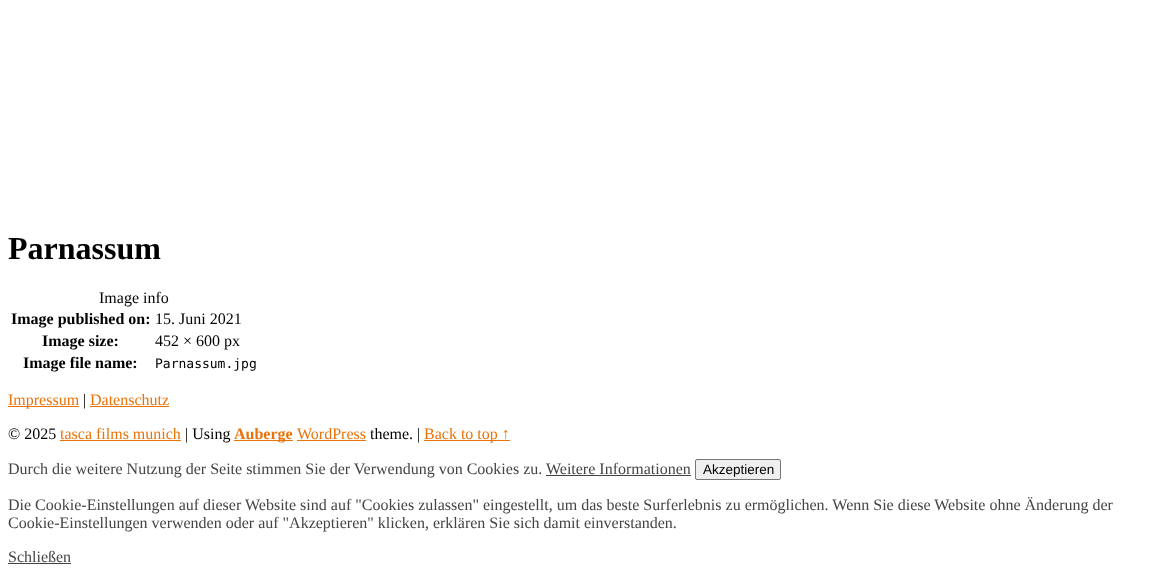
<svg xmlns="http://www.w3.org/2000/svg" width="1176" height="582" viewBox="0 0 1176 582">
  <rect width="100%" height="100%" fill="#ffffff"/>
  <text x="8" y="259" font-family="Liberation Serif" font-size="32" font-weight="bold" fill="#000000">Parnassum</text>
  <text x="99" y="303" font-family="Liberation Serif" font-size="16" fill="#000000">Image info</text>
  <text x="11" y="324" font-family="Liberation Serif" font-size="16" font-weight="bold" fill="#000000">Image published on:</text>
  <text x="155" y="324" font-family="Liberation Serif" font-size="16" fill="#000000">15. Juni 2021</text>
  <text x="42" y="346" font-family="Liberation Serif" font-size="16" font-weight="bold" fill="#000000">Image size:</text>
  <text x="155" y="346" font-family="Liberation Serif" font-size="16" fill="#000000">452 × 600 px</text>
  <text x="23" y="368" font-family="Liberation Serif" font-size="16" font-weight="bold" fill="#000000">Image file name:</text>
  <text x="155" y="368" font-family="DejaVu Sans Mono" font-size="13" fill="#000000">Parnassum.jpg</text>
  <rect x="8" y="406" width="71" height="1" fill="#ea7309"/>
  <text x="8" y="405" font-family="Liberation Serif" font-size="16" fill="#ea7309">Impressum</text>
  <text x="83" y="405" font-family="Liberation Serif" font-size="16" fill="#000000">|</text>
  <text x="90" y="405" font-family="Liberation Serif" font-size="16" fill="#ea7309">Datenschutz</text>
  <rect x="90" y="406" width="79" height="1" fill="#ea7309"/>
  <text x="8" y="439" font-family="Liberation Serif" font-size="16" fill="#000000">© 2025</text>
  <text x="60" y="439" font-family="Liberation Serif" font-size="16" fill="#ea7309">tasca films munich</text>
  <rect x="60" y="440" width="121" height="1" fill="#ea7309"/>
  <text x="185" y="439" font-family="Liberation Serif" font-size="16" fill="#000000">| Using</text>
  <rect x="234" y="440" width="59" height="1" fill="#ea7309"/>
  <text x="234" y="439" font-family="Liberation Serif" font-size="16" font-weight="bold" fill="#ea7309">Auberge</text>
  <text x="297" y="439" font-family="Liberation Serif" font-size="16" fill="#ea7309">WordPress</text>
  <rect x="297" y="440" width="69" height="1" fill="#ea7309"/>
  <text x="370" y="439" font-family="Liberation Serif" font-size="16" fill="#000000">theme. |</text>
  <rect x="424" y="440" width="86" height="1" fill="#ea7309"/>
  <text x="424" y="439" font-family="Liberation Serif" font-size="16" fill="#ea7309">Back to top ↑</text>
  <text x="8" y="474" font-family="Liberation Serif" font-size="16" fill="#444444">Durch die weitere Nutzung der Seite stimmen Sie der Verwendung von Cookies zu. Weitere Informationen</text>
  <rect x="695.5" y="459.5" width="85" height="20" rx="1.5" fill="#efefef" stroke="#767676"/>
  <text x="703" y="474" font-family="Liberation Sans" font-size="13.5" fill="#000000">Akzeptieren</text>
  <rect x="546" y="475" width="145" height="1" fill="#444444"/>
  <text x="8" y="510" font-family="Liberation Serif" font-size="16" fill="#444444">Die Cookie-Einstellungen auf dieser Website sind auf "Cookies zulassen" eingestellt, um das beste Surferlebnis zu ermöglichen. Wenn Sie diese Website ohne Änderung der</text>
  <text x="8" y="528" font-family="Liberation Serif" font-size="16" fill="#444444">Cookie-Einstellungen verwenden oder auf "Akzeptieren" klicken, erklären Sie sich damit einverstanden.</text>
  <text x="8" y="562" font-family="Liberation Serif" font-size="16" fill="#444444">Schließen</text>
  <rect x="8" y="563" width="63" height="1" fill="#444444"/>
</svg>
